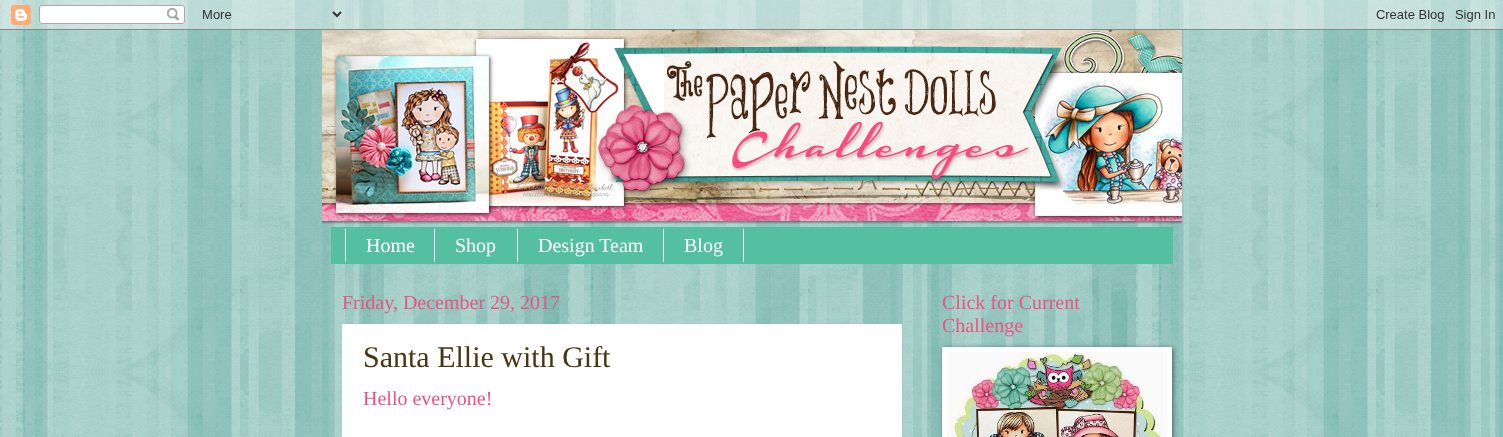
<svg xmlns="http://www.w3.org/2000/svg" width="1503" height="437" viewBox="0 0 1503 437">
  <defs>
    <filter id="blur1" x="-50%" y="-200%" width="200%" height="500%"><feGaussianBlur stdDeviation="2.5"/></filter>
  </defs>
  <rect width="100%" height="100%" fill="#ffffff"/>
  <image x="0" y="0" width="1503" height="437" href="img1.png"/>
  <image x="0" y="0" width="1503" height="30" href="img2.png"/>
  <image x="322" y="30" width="860" height="194" href="img3.png"/>
  <rect x="331" y="227" width="842" height="37" fill="#54c0a1"/>
  <rect x="434" y="229" width="1" height="33" fill="#ffffff"/>
  <rect x="345" y="229" width="1" height="33" fill="#ffffff"/>
  <text x="366" y="252" font-family="Liberation Serif" font-size="20" fill="#ffffff">Home</text>
  <rect x="517" y="229" width="1" height="33" fill="#ffffff"/>
  <text x="455" y="252" font-family="Liberation Serif" font-size="20" fill="#ffffff">Shop</text>
  <rect x="663" y="229" width="1" height="33" fill="#ffffff"/>
  <text x="538" y="252" font-family="Liberation Serif" font-size="20" fill="#ffffff">Design Team</text>
  <rect x="743" y="229" width="1" height="33" fill="#ffffff"/>
  <text x="684" y="252" font-family="Liberation Serif" font-size="20" fill="#ffffff">Blog</text>
  <text x="342" y="309" font-family="Liberation Serif" font-size="20" fill="#eb5480">Friday, December 29, 2017</text>
  <rect x="342" y="324" width="560" height="113" fill="#ffffff"/>
  <text x="363" y="367" font-family="Liberation Serif" font-size="30" fill="#463713">Santa Ellie with Gift</text>
  <text x="363" y="405" font-family="Liberation Serif" font-size="20" fill="#eb5480">Hello everyone!</text>
  <text x="942" y="309" font-family="Liberation Serif" font-size="20" fill="#eb5480">Click for Current</text>
  <text x="942" y="332" font-family="Liberation Serif" font-size="20" fill="#eb5480">Challenge</text>
  <rect x="943" y="348" width="230" height="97" fill="#000000" fill-opacity="0.5" filter="url(#blur1)"/>
  <rect x="942" y="347" width="230" height="90" fill="#ffffff"/>
  <image x="947" y="352" width="220" height="85" href="img4.png"/>
</svg>
